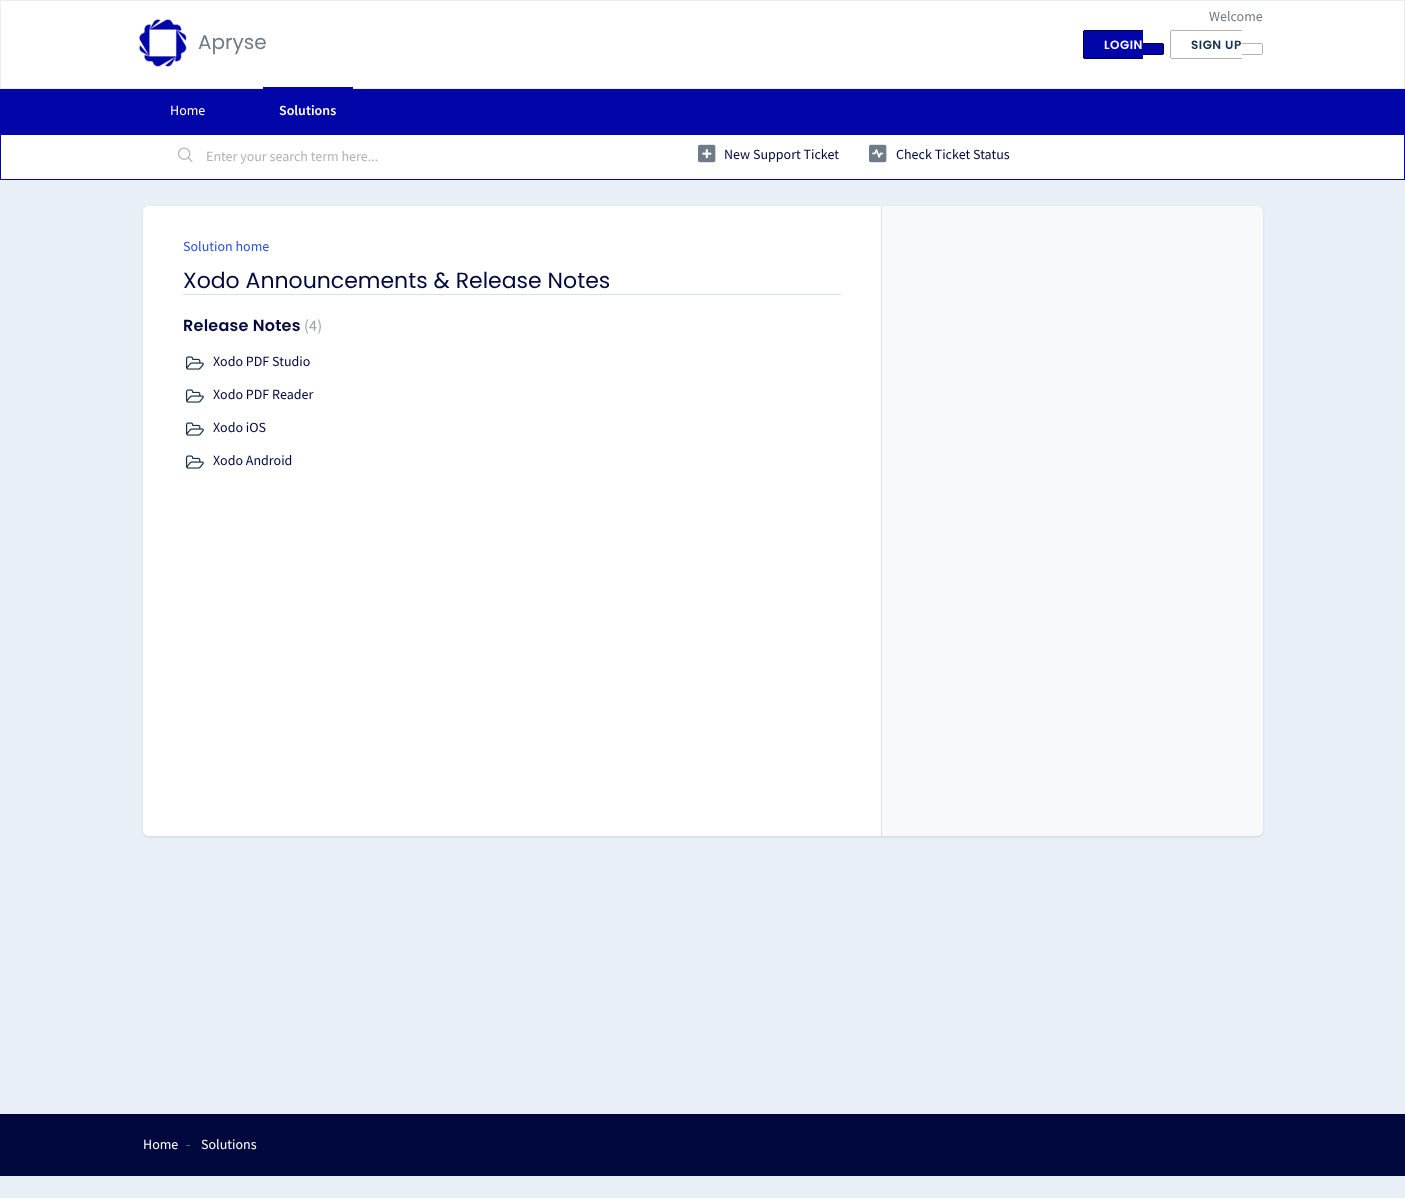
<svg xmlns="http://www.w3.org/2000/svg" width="1405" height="1198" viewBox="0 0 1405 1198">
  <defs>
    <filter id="blur1" x="-50%" y="-200%" width="200%" height="500%"><feGaussianBlur stdDeviation="1"/></filter>
  </defs>
  <rect width="100%" height="100%" fill="#e8eff6"/>
  <rect x="0.5" y="0.5" width="1404" height="88" fill="#ffffff" stroke="#ebeef0"/>
  <image x="139" y="19" width="48" height="48" href="img1.png"/>
  <text x="198" y="49" font-family="Poppins" font-size="20" fill="#6f7c87">Apryse</text>
  <text x="1209" y="21" font-family="Source Sans Pro" font-size="14" fill="#6f7c87">Welcome</text>
  <path d="M1085 30H1143V59H1085C1084 59 1083 58 1083 57V32C1083 31 1084 30 1085 30Z" fill="#0206a8"/>
  <text x="1104" y="49" font-family="Poppins" font-size="12" font-weight="600" letter-spacing="0.5" fill="#ffffff">LOGIN</text>
  <rect x="1084" y="30" width="59" height="1" fill="#010243"/>
  <rect x="1084" y="58" width="59" height="1" fill="#010243"/>
  <rect x="1083" y="31" width="1" height="27" fill="#010243"/>
  <path d="M1143 43H1162C1163 43 1164 44 1164 45V53C1164 54 1163 55 1162 55H1143Z" fill="#0206a8"/>
  <rect x="1143" y="43" width="20" height="1" fill="#010243"/>
  <rect x="1163" y="44" width="1" height="10" fill="#010243"/>
  <rect x="1143" y="54" width="20" height="1" fill="#010243"/>
  <text x="1191" y="49" font-family="Poppins" font-size="12" font-weight="600" letter-spacing="0.5" fill="#183247">SIGN UP</text>
  <rect x="1171" y="30" width="71" height="1" fill="#b3b3b3"/>
  <rect x="1171" y="58" width="71" height="1" fill="#b3b3b3"/>
  <rect x="1170" y="31" width="1" height="27" fill="#b3b3b3"/>
  <rect x="1242" y="43" width="20" height="1" fill="#b3b3b3"/>
  <rect x="1262" y="44" width="1" height="10" fill="#b3b3b3"/>
  <rect x="1242" y="54" width="20" height="1" fill="#b3b3b3"/>
  <rect x="0" y="89" width="1405" height="45" fill="#0206a8"/>
  <text x="170" y="115" font-family="Source Sans Pro" font-size="14" fill="#ffffff">Home</text>
  <rect x="263" y="87" width="90" height="2" fill="#0206a8"/>
  <text x="279" y="115" font-family="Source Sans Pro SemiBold" font-size="14" font-weight="600" fill="#ffffff">Solutions</text>
  <rect x="0.5" y="134.5" width="1404" height="45" fill="#ffffff" stroke="#0206a8"/>
  <image x="178" y="147" width="15" height="15" href="img2.png"/>
  <text x="206" y="161" font-family="Source Sans Pro" font-size="14" fill="#b2b2b2">Enter your search term here...</text>
  <image x="698" y="144" width="18" height="19" href="img3.png"/>
  <text x="724" y="159" font-family="Source Sans Pro" font-size="14" fill="#00083d">New Support Ticket</text>
  <image x="869" y="144" width="18" height="19" href="img4.png"/>
  <text x="896" y="159" font-family="Source Sans Pro" font-size="14" fill="#00083d">Check Ticket Status</text>
  <rect x="143" y="207" width="1120" height="630" rx="6" fill="#3f3f44" fill-opacity="0.15" filter="url(#blur1)"/>
  <rect x="143" y="206" width="1120" height="630" rx="6" fill="#f8f9fa"/>
  <path d="M149 206H882V836H149C145.5 836 143 833.5 143 830V212C143 208.5 145.5 206 149 206Z" fill="#ffffff"/>
  <rect x="881" y="206" width="1" height="630" fill="#dadfe3"/>
  <text x="183" y="251" font-family="Source Sans Pro" font-size="14" fill="#2753d7">Solution home</text>
  <rect x="183" y="294" width="658" height="1" fill="#dadfe3"/>
  <text x="183" y="288" font-family="Poppins" font-size="22" fill="#00083d">Xodo Announcements &amp; Release Notes</text>
  <text x="183" y="331" font-family="Poppins" font-size="16" font-weight="600" letter-spacing="0.25" fill="#00083d">Release Notes</text>
  <text x="304" y="331" font-family="Source Sans Pro" font-size="16" letter-spacing="0.25" fill="#9aa1a6">(4)</text>
  <image x="186" y="356" width="18" height="14" href="img5.png"/>
  <text x="213" y="366" font-family="Source Sans Pro" font-size="14" fill="#00083d">Xodo PDF Studio</text>
  <image x="186" y="389" width="18" height="14" href="img5.png"/>
  <text x="213" y="399" font-family="Source Sans Pro" font-size="14" fill="#00083d">Xodo PDF Reader</text>
  <image x="186" y="422" width="18" height="14" href="img5.png"/>
  <text x="213" y="432" font-family="Source Sans Pro" font-size="14" fill="#00083d">Xodo iOS</text>
  <image x="186" y="455" width="18" height="14" href="img5.png"/>
  <text x="213" y="465" font-family="Source Sans Pro" font-size="14" fill="#00083d">Xodo Android</text>
  <rect x="0" y="1114" width="1405" height="62" fill="#00083d"/>
  <text x="143" y="1149" font-family="Source Sans Pro" font-size="14" fill="#ffffff">Home</text>
  <text x="186" y="1149" font-family="Source Sans Pro" font-size="14" fill="#80849e">-</text>
  <text x="201" y="1149" font-family="Source Sans Pro" font-size="14" fill="#ffffff">Solutions</text>
</svg>
